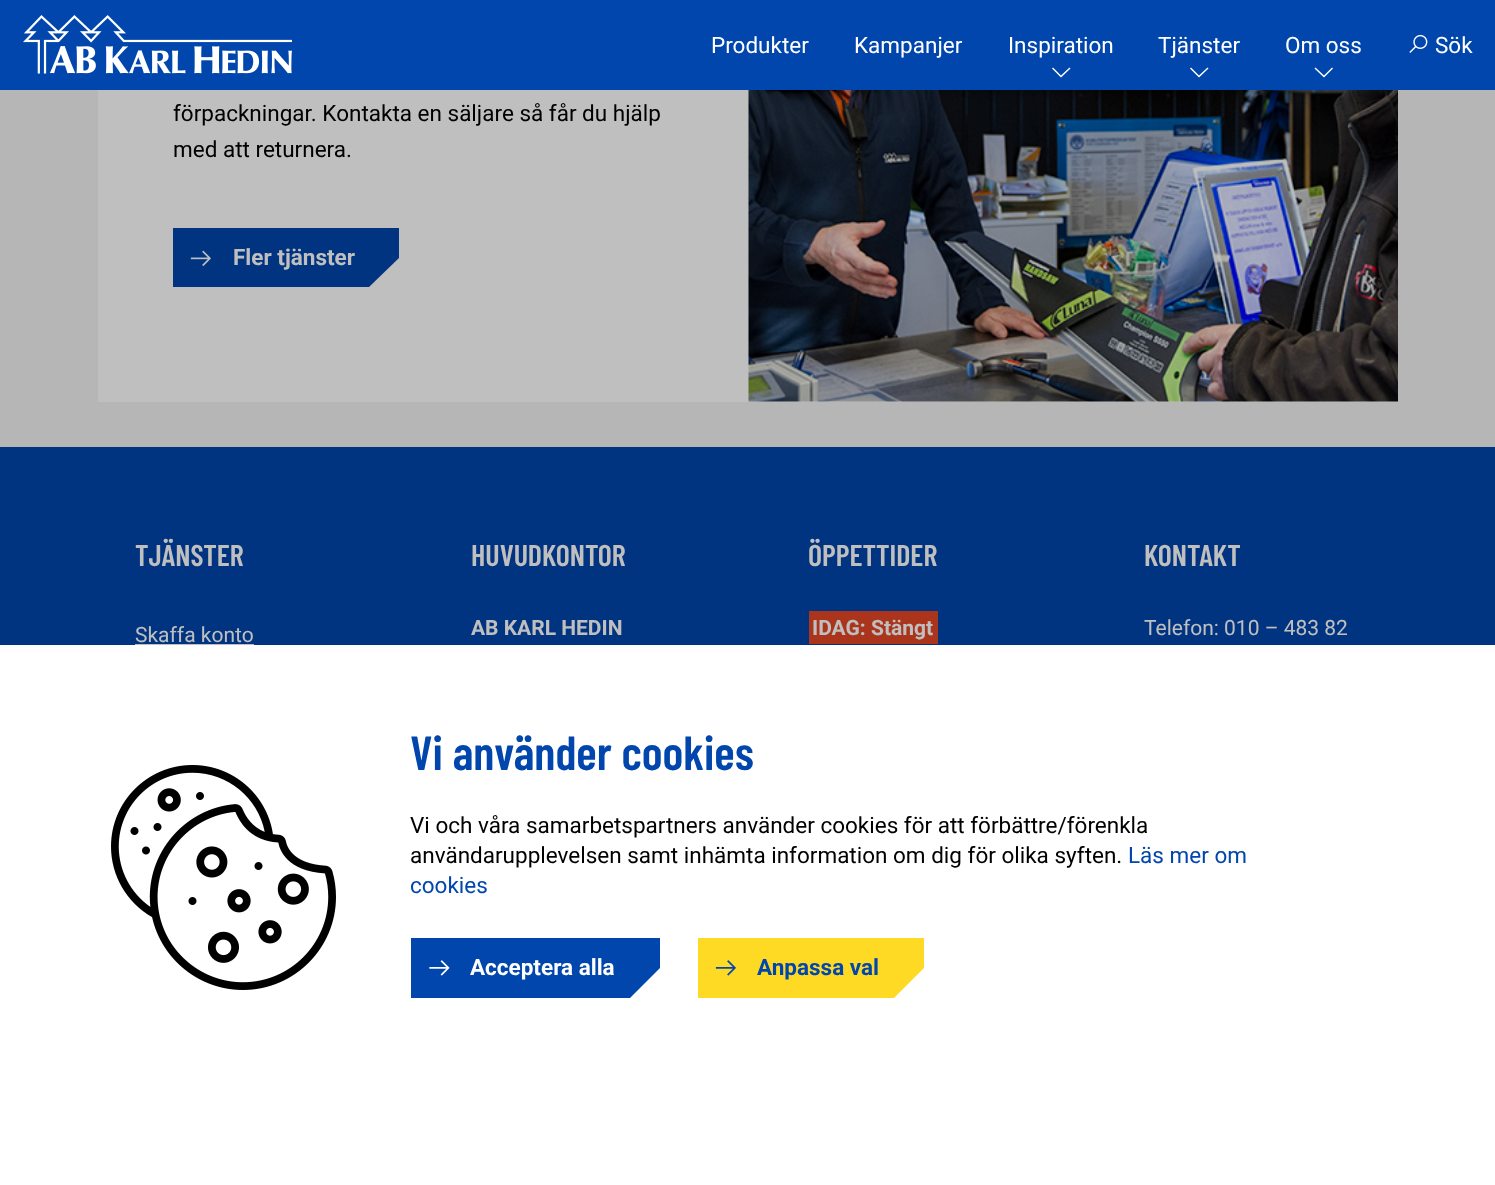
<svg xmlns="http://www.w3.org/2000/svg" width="1495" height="1185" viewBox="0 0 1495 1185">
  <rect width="100%" height="100%" fill="#f3f3f3"/>
  <rect x="0" y="0" width="1495" height="90" fill="#0046ad"/>
  <image x="23" y="15" width="269" height="59" href="img1.png"/>
  <text x="711" y="53" font-family="Roboto" font-size="22.5" fill="#ffffff">Produkter</text>
  <text x="854" y="53" font-family="Roboto" font-size="22.5" fill="#ffffff">Kampanjer</text>
  <text x="1008" y="53" font-family="Roboto" font-size="22.5" fill="#ffffff">Inspiration</text>
  <path d="M1053 67.5L1052 68.5L1061 77.5L1070.5 68.5L1069.5 67.5L1061 75.5Z" fill="#ffffff"/>
  <text x="1158" y="53" font-family="Roboto" font-size="22.5" fill="#ffffff">Tjänster</text>
  <path d="M1191 67.5L1190 68.5L1199 77.5L1208.5 68.5L1207.5 67.5L1199 75.5Z" fill="#ffffff"/>
  <text x="1285" y="53" font-family="Roboto" font-size="22.5" fill="#ffffff">Om oss</text>
  <path d="M1315.5 67.5L1314.5 68.5L1324 77.5L1333 68.5L1332 67.5L1324 75.5Z" fill="#ffffff"/>
  <image x="1409" y="34" width="19" height="19" href="img2.png"/>
  <text x="1435" y="53" font-family="Roboto" font-size="22.5" fill="#ffffff">Sök</text>
  <rect x="98" y="90" width="1300" height="312" fill="#ffffff"/>
  <text x="173" y="121" font-family="Roboto" font-size="22.5" fill="#000000">förpackningar. Kontakta en säljare så får du hjälp</text>
  <text x="173" y="157" font-family="Roboto" font-size="22.5" fill="#000000">med att returnera.</text>
  <path d="M173 228H399V258L369 287H173Z" fill="#0046ad"/>
  <image x="190" y="250" width="21" height="17" href="img3.png"/>
  <text x="233" y="265" font-family="Roboto" font-size="22.5" font-weight="bold" fill="#ffffff">Fler tjänster</text>
  <image x="748" y="90" width="650" height="312" href="img4.png"/>
  <rect x="0" y="447" width="1495" height="198" fill="#0046ad"/>
  <text x="135" y="566" font-family="Barlow Condensed" font-size="30" font-weight="600" fill="#ffffff">TJÄNSTER</text>
  <text x="135" y="642" font-family="Roboto" font-size="21" fill="#ffffff">Skaffa konto</text>
  <rect x="135" y="644" width="119" height="1" fill="#ffffff"/>
  <text x="471" y="566" font-family="Barlow Condensed" font-size="30" font-weight="600" fill="#ffffff">HUVUDKONTOR</text>
  <text x="471" y="635" font-family="Roboto" font-size="21" font-weight="bold" fill="#ffffff">AB KARL HEDIN</text>
  <text x="808" y="566" font-family="Barlow Condensed" font-size="30" font-weight="600" fill="#ffffff">ÖPPETTIDER</text>
  <rect x="809" y="611" width="129" height="33" fill="#e54626"/>
  <text x="812" y="635" font-family="Roboto" font-size="21" font-weight="bold" fill="#ffffff">IDAG: Stängt</text>
  <text x="1144" y="566" font-family="Barlow Condensed" font-size="30" font-weight="600" fill="#ffffff">KONTAKT</text>
  <text x="1144" y="635" font-family="Roboto" font-size="21" fill="#ffffff">Telefon: 010 – 483 82</text>
  <rect x="0" y="90" width="1495" height="555" fill="#000000" fill-opacity="0.25"/>
  <rect x="0" y="645" width="1495" height="540" fill="#ffffff"/>
  <image x="111" y="765" width="225" height="225" href="img5.png"/>
  <text x="410" y="770" font-family="Barlow Condensed" font-size="48" font-weight="600" fill="#0046ad">Vi använder cookies</text>
  <text x="410" y="833" font-family="Roboto" font-size="22.5" fill="#000000">Vi och våra samarbetspartners använder cookies för att förbättre/förenkla</text>
  <text x="410" y="863" font-family="Roboto" font-size="22.5" fill="#000000">användarupplevelsen samt inhämta information om dig för olika syften.</text>
  <text x="1128" y="863" font-family="Roboto" font-size="22.5" fill="#0046ad">Läs mer om</text>
  <text x="410" y="893" font-family="Roboto" font-size="22.5" fill="#0046ad">cookies</text>
  <path d="M411 938H660V968L630 998H411Z" fill="#0046ad"/>
  <image x="429" y="960" width="21" height="16" href="img6.png"/>
  <text x="470" y="975" font-family="Roboto" font-size="22.5" font-weight="bold" fill="#ffffff">Acceptera alla</text>
  <path d="M698 938H924V968L894 998H698Z" fill="#ffda24"/>
  <image x="715" y="960" width="21" height="16" href="img7.png"/>
  <text x="757" y="975" font-family="Roboto" font-size="22.5" font-weight="bold" fill="#0046ad">Anpassa val</text>
</svg>
